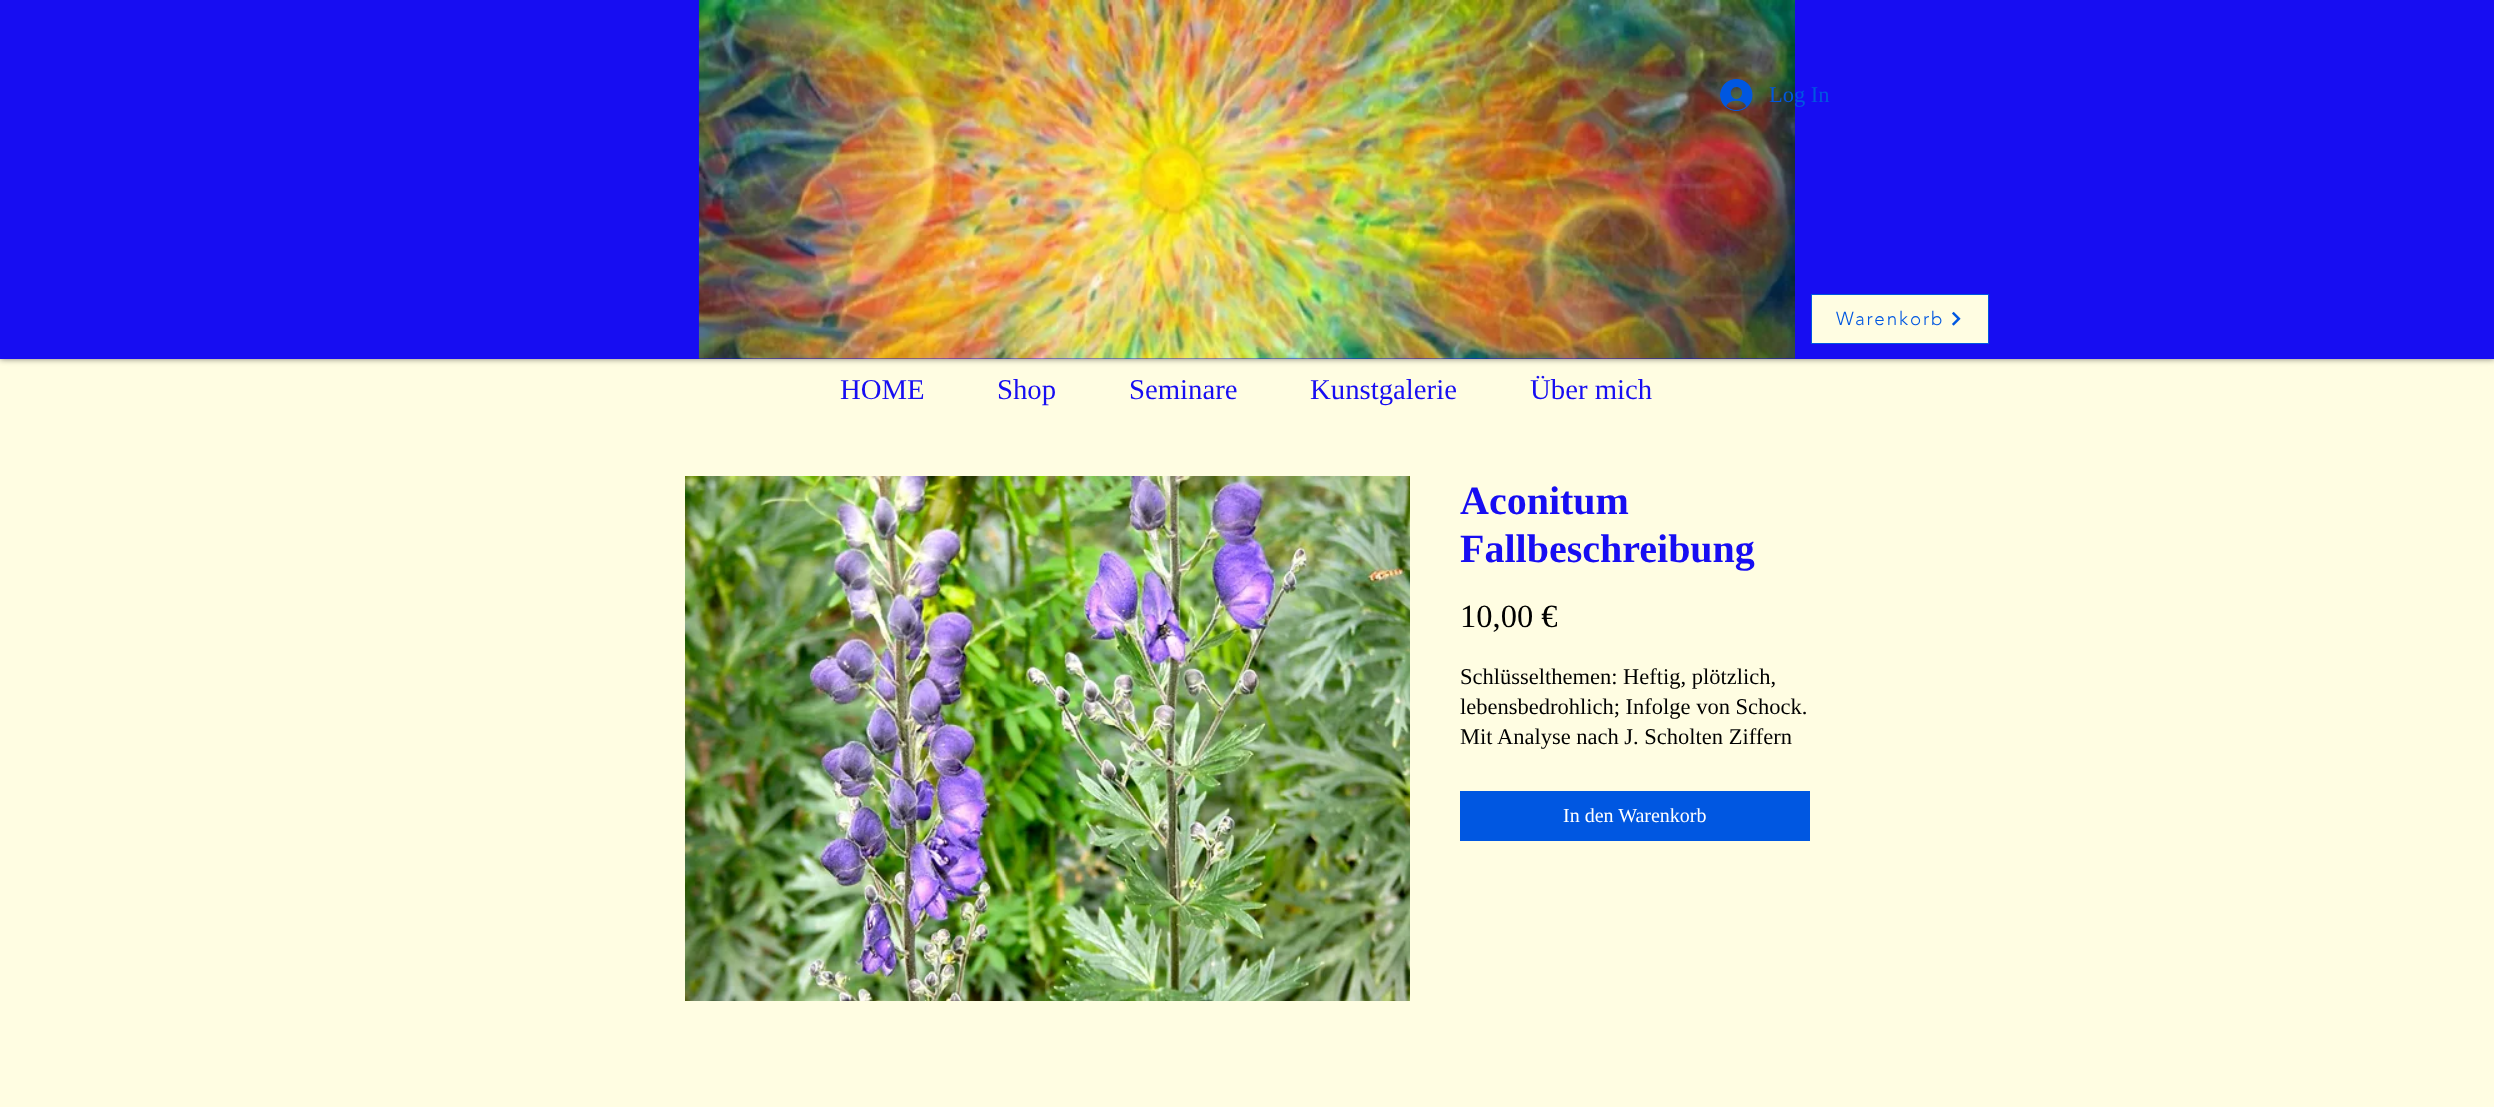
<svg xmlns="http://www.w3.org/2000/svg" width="2494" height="1107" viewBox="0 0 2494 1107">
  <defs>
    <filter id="blur1" x="-50%" y="-200%" width="200%" height="500%"><feGaussianBlur stdDeviation="3"/></filter>
  </defs>
  <rect width="100%" height="100%" fill="#fffde2"/>
  <rect x="0" y="0" width="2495" height="359" fill="#000000" fill-opacity="0.5" filter="url(#blur1)"/>
  <rect x="0" y="0" width="2494" height="359" fill="#170df2"/>
  <image x="698" y="0" width="1097" height="359" href="img1.png"/>
  <image x="1720" y="79" width="33" height="32" href="img2.png"/>
  <text x="1769" y="102" font-family="Liberation Serif" font-size="22.5" fill="#0057e1">Log In</text>
  <rect x="1811.5" y="294.5" width="177" height="49" fill="#fffde2" stroke="#0057e1"/>
  <text x="1836" y="325" font-family="'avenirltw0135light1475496'" font-size="18.75" font-weight="300" letter-spacing="1.9" fill="#0057e1">Warenkorb</text>
  <image x="1952" y="311" width="9" height="15" href="img3.png"/>
  <text x="840" y="399" font-family="Liberation Serif" font-size="28.75" fill="#170df2">HOME</text>
  <text x="997" y="399" font-family="Liberation Serif" font-size="28.75" fill="#170df2">Shop</text>
  <text x="1129" y="399" font-family="Liberation Serif" font-size="28.75" fill="#170df2">Seminare</text>
  <text x="1310" y="399" font-family="Liberation Serif" font-size="28.75" fill="#170df2">Kunstgalerie</text>
  <text x="1530" y="399" font-family="Liberation Serif" font-size="28.75" fill="#170df2">Über mich</text>
  <image x="685" y="476" width="725" height="525" href="img4.png"/>
  <text x="1460" y="514" font-family="Liberation Serif" font-size="40" font-weight="bold" fill="#170df2">Aconitum</text>
  <text x="1460" y="562" font-family="Liberation Serif" font-size="40" font-weight="bold" fill="#170df2">Fallbeschreibung</text>
  <text x="1460" y="627" font-family="Liberation Serif" font-size="32.5" fill="#000000">10,00 €</text>
  <text x="1460" y="684" font-family="Liberation Serif" font-size="22.5" fill="#000000">Schlüsselthemen: Heftig, plötzlich,</text>
  <text x="1460" y="714" font-family="Liberation Serif" font-size="22.5" fill="#000000">lebensbedrohlich; Infolge von Schock.</text>
  <text x="1460" y="744" font-family="Liberation Serif" font-size="22.5" fill="#000000">Mit Analyse nach J. Scholten Ziffern</text>
  <rect x="1460" y="791" width="350" height="50" fill="#0057e1"/>
  <text x="1563" y="822" font-family="Liberation Serif" font-size="20" fill="#ffffff">In den Warenkorb</text>
</svg>
